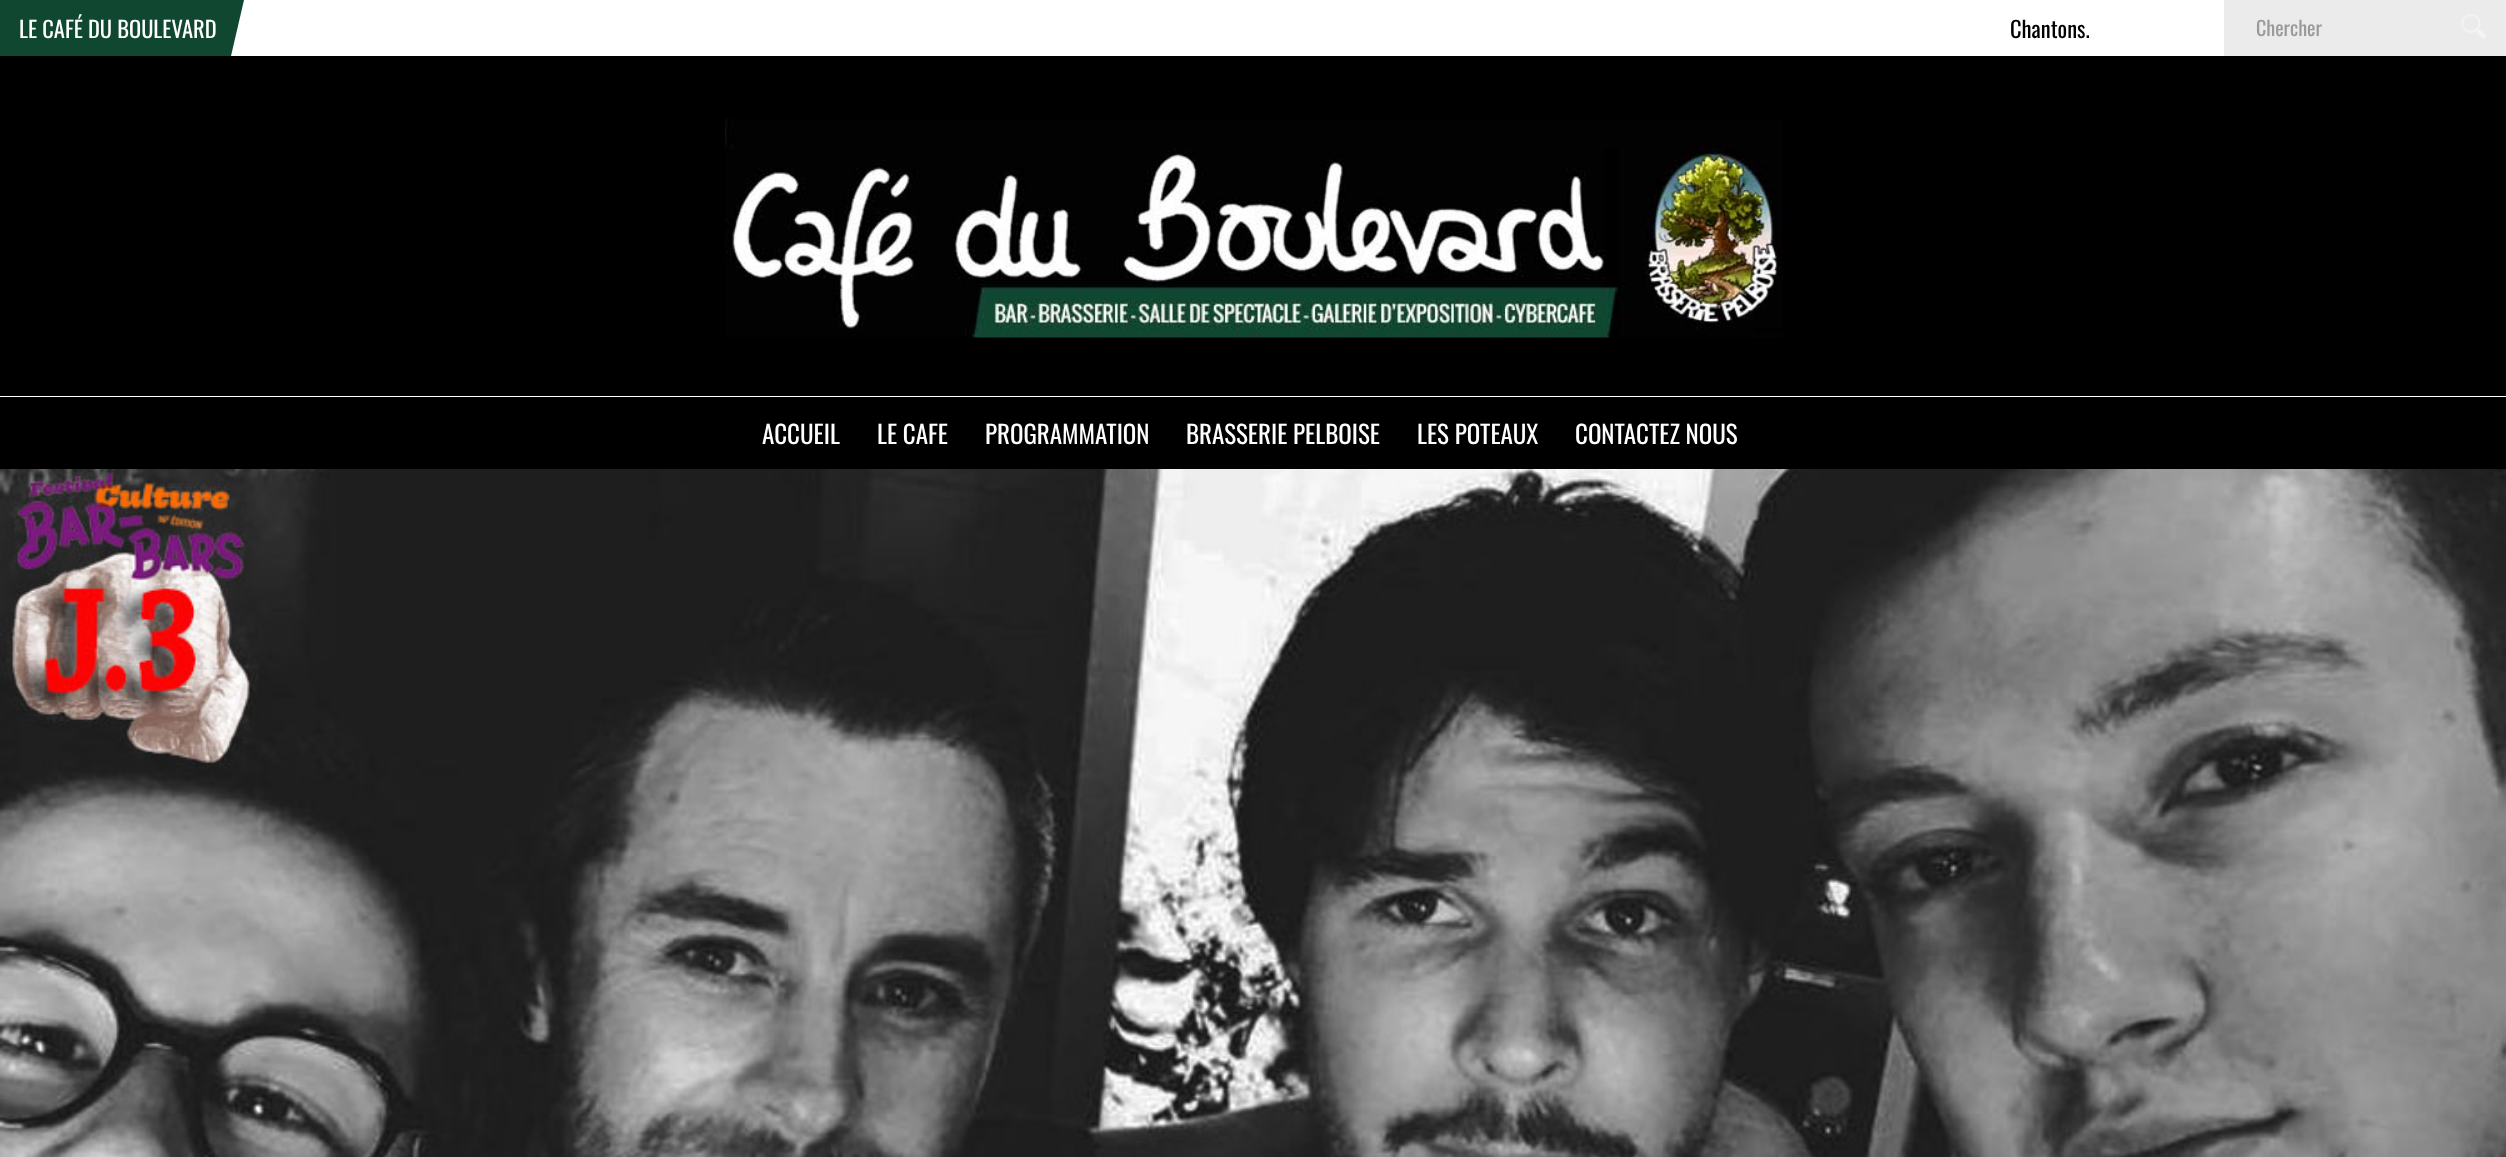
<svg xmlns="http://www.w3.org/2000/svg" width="2506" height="1157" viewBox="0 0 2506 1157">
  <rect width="100%" height="100%" fill="#ffffff"/>
  <rect x="0" y="0" width="231" height="56" fill="#104730"/>
  <text x="19" y="38" font-family="Oswald" font-size="22.5" fill="#ffffff">LE CAFÉ DU BOULEVARD</text>
  <path d="M231 56V0H244Z" fill="#104730"/>
  <text x="2010" y="38" font-family="Oswald" font-size="22.5" fill="#000000">Chantons.</text>
  <rect x="2224" y="0" width="282" height="56" fill="#ebebeb"/>
  <text x="2256" y="36" font-family="Oswald" font-size="20" fill="#999999">Chercher</text>
  <image x="2461" y="14" width="25" height="25" href="img1.png"/>
  <rect x="0" y="56" width="2506" height="340" fill="#000000"/>
  <image x="725" y="119" width="1058" height="219" href="img2.png"/>
  <rect x="0" y="397" width="2506" height="72" fill="#000000"/>
  <text x="762" y="444" font-family="Oswald" font-size="25" fill="#ffffff">ACCUEIL</text>
  <text x="877" y="444" font-family="Oswald" font-size="25" fill="#ffffff">LE CAFE</text>
  <text x="985" y="444" font-family="Oswald" font-size="25" fill="#ffffff">PROGRAMMATION</text>
  <text x="1186" y="444" font-family="Oswald" font-size="25" fill="#ffffff">BRASSERIE PELBOISE</text>
  <text x="1417" y="444" font-family="Oswald" font-size="25" fill="#ffffff">LES POTEAUX</text>
  <text x="1575" y="444" font-family="Oswald" font-size="25" fill="#ffffff">CONTACTEZ NOUS</text>
  <image x="0" y="469" width="2506" height="688" href="img3.png"/>
</svg>
